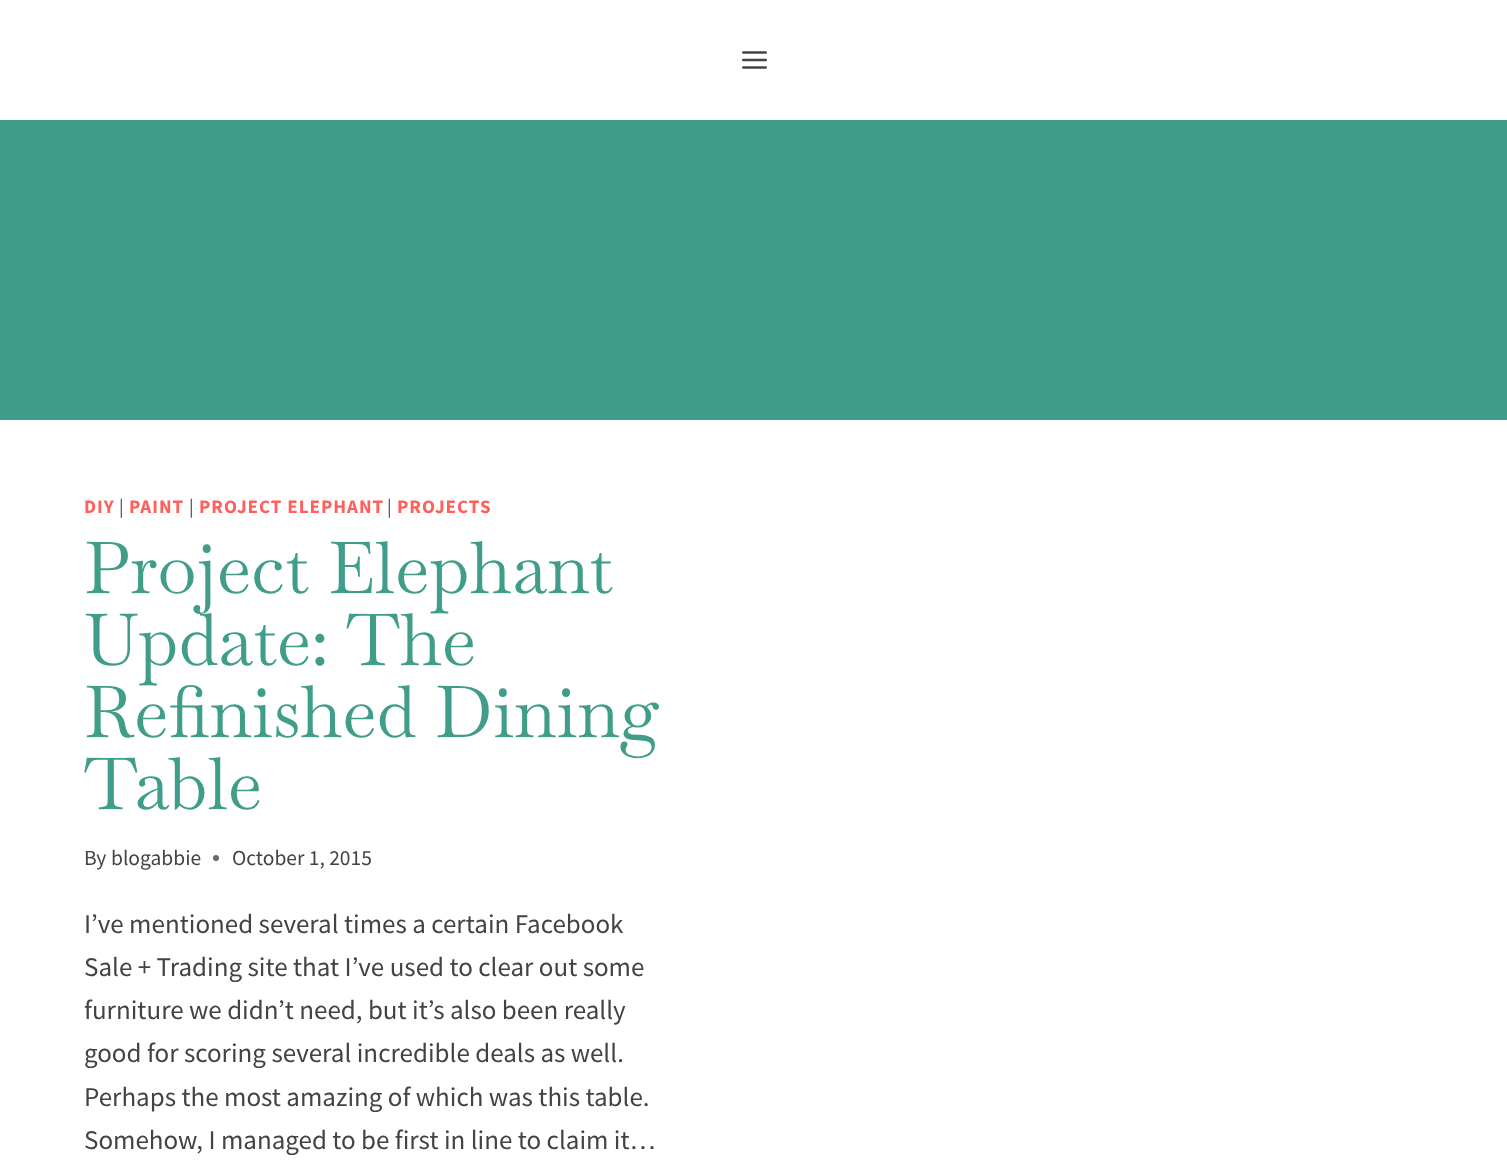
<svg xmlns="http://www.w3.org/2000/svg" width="1507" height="1166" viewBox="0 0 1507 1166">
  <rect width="100%" height="100%" fill="#ffffff"/>
  <image x="742" y="51" width="25" height="18" href="img1.png"/>
  <rect x="0" y="120" width="1507" height="300" fill="#3f9d8a"/>
  <text x="84" y="513" font-family="Source Sans Pro" font-size="19" font-weight="bold" letter-spacing="1" fill="#ff605c">DIY</text>
  <text x="119" y="513" font-family="Source Sans Pro" font-size="19" letter-spacing="1" fill="#434343">|</text>
  <text x="129" y="513" font-family="Source Sans Pro" font-size="19" font-weight="bold" letter-spacing="1" fill="#ff605c">PAINT</text>
  <text x="189" y="513" font-family="Source Sans Pro" font-size="19" letter-spacing="1" fill="#434343">|</text>
  <text x="199" y="513" font-family="Source Sans Pro" font-size="19" font-weight="bold" letter-spacing="1" fill="#ff605c">PROJECT ELEPHANT</text>
  <text x="387" y="513" font-family="Source Sans Pro" font-size="19" letter-spacing="1" fill="#434343">|</text>
  <text x="397" y="513" font-family="Source Sans Pro" font-size="19" font-weight="bold" letter-spacing="1" fill="#ff605c">PROJECTS</text>
  <text x="84" y="593" font-family="Baskervville" font-size="72" fill="#3f9d8a">Project Elephant</text>
  <text x="84" y="665" font-family="Baskervville" font-size="72" fill="#3f9d8a">Update: The</text>
  <text x="84" y="737" font-family="Baskervville" font-size="72" fill="#3f9d8a">Refinished Dining</text>
  <text x="84" y="809" font-family="Baskervville" font-size="72" fill="#3f9d8a">Table</text>
  <text x="84" y="865" font-family="Source Sans Pro" font-size="21.5" fill="#434343">By</text>
  <text x="111" y="865" font-family="Source Sans Pro" font-size="21.5" fill="#434343">blogabbie</text>
  <circle cx="216" cy="858" r="3" fill="#696969"/>
  <text x="232" y="865" font-family="Source Sans Pro" font-size="21.5" fill="#434343">October 1, 2015</text>
  <text x="84" y="933" font-family="Source Sans Pro" font-size="27" fill="#434343">I’ve mentioned several times a certain Facebook</text>
  <text x="84" y="976" font-family="Source Sans Pro" font-size="27" fill="#434343">Sale + Trading site that I’ve used to clear out some</text>
  <text x="84" y="1019" font-family="Source Sans Pro" font-size="27" fill="#434343">furniture we didn’t need, but it’s also been really</text>
  <text x="84" y="1062" font-family="Source Sans Pro" font-size="27" fill="#434343">good for scoring several incredible deals as well.</text>
  <text x="84" y="1106" font-family="Source Sans Pro" font-size="27" fill="#434343">Perhaps the most amazing of which was this table.</text>
  <text x="84" y="1149" font-family="Source Sans Pro" font-size="27" fill="#434343">Somehow, I managed to be first in line to claim it…</text>
</svg>
